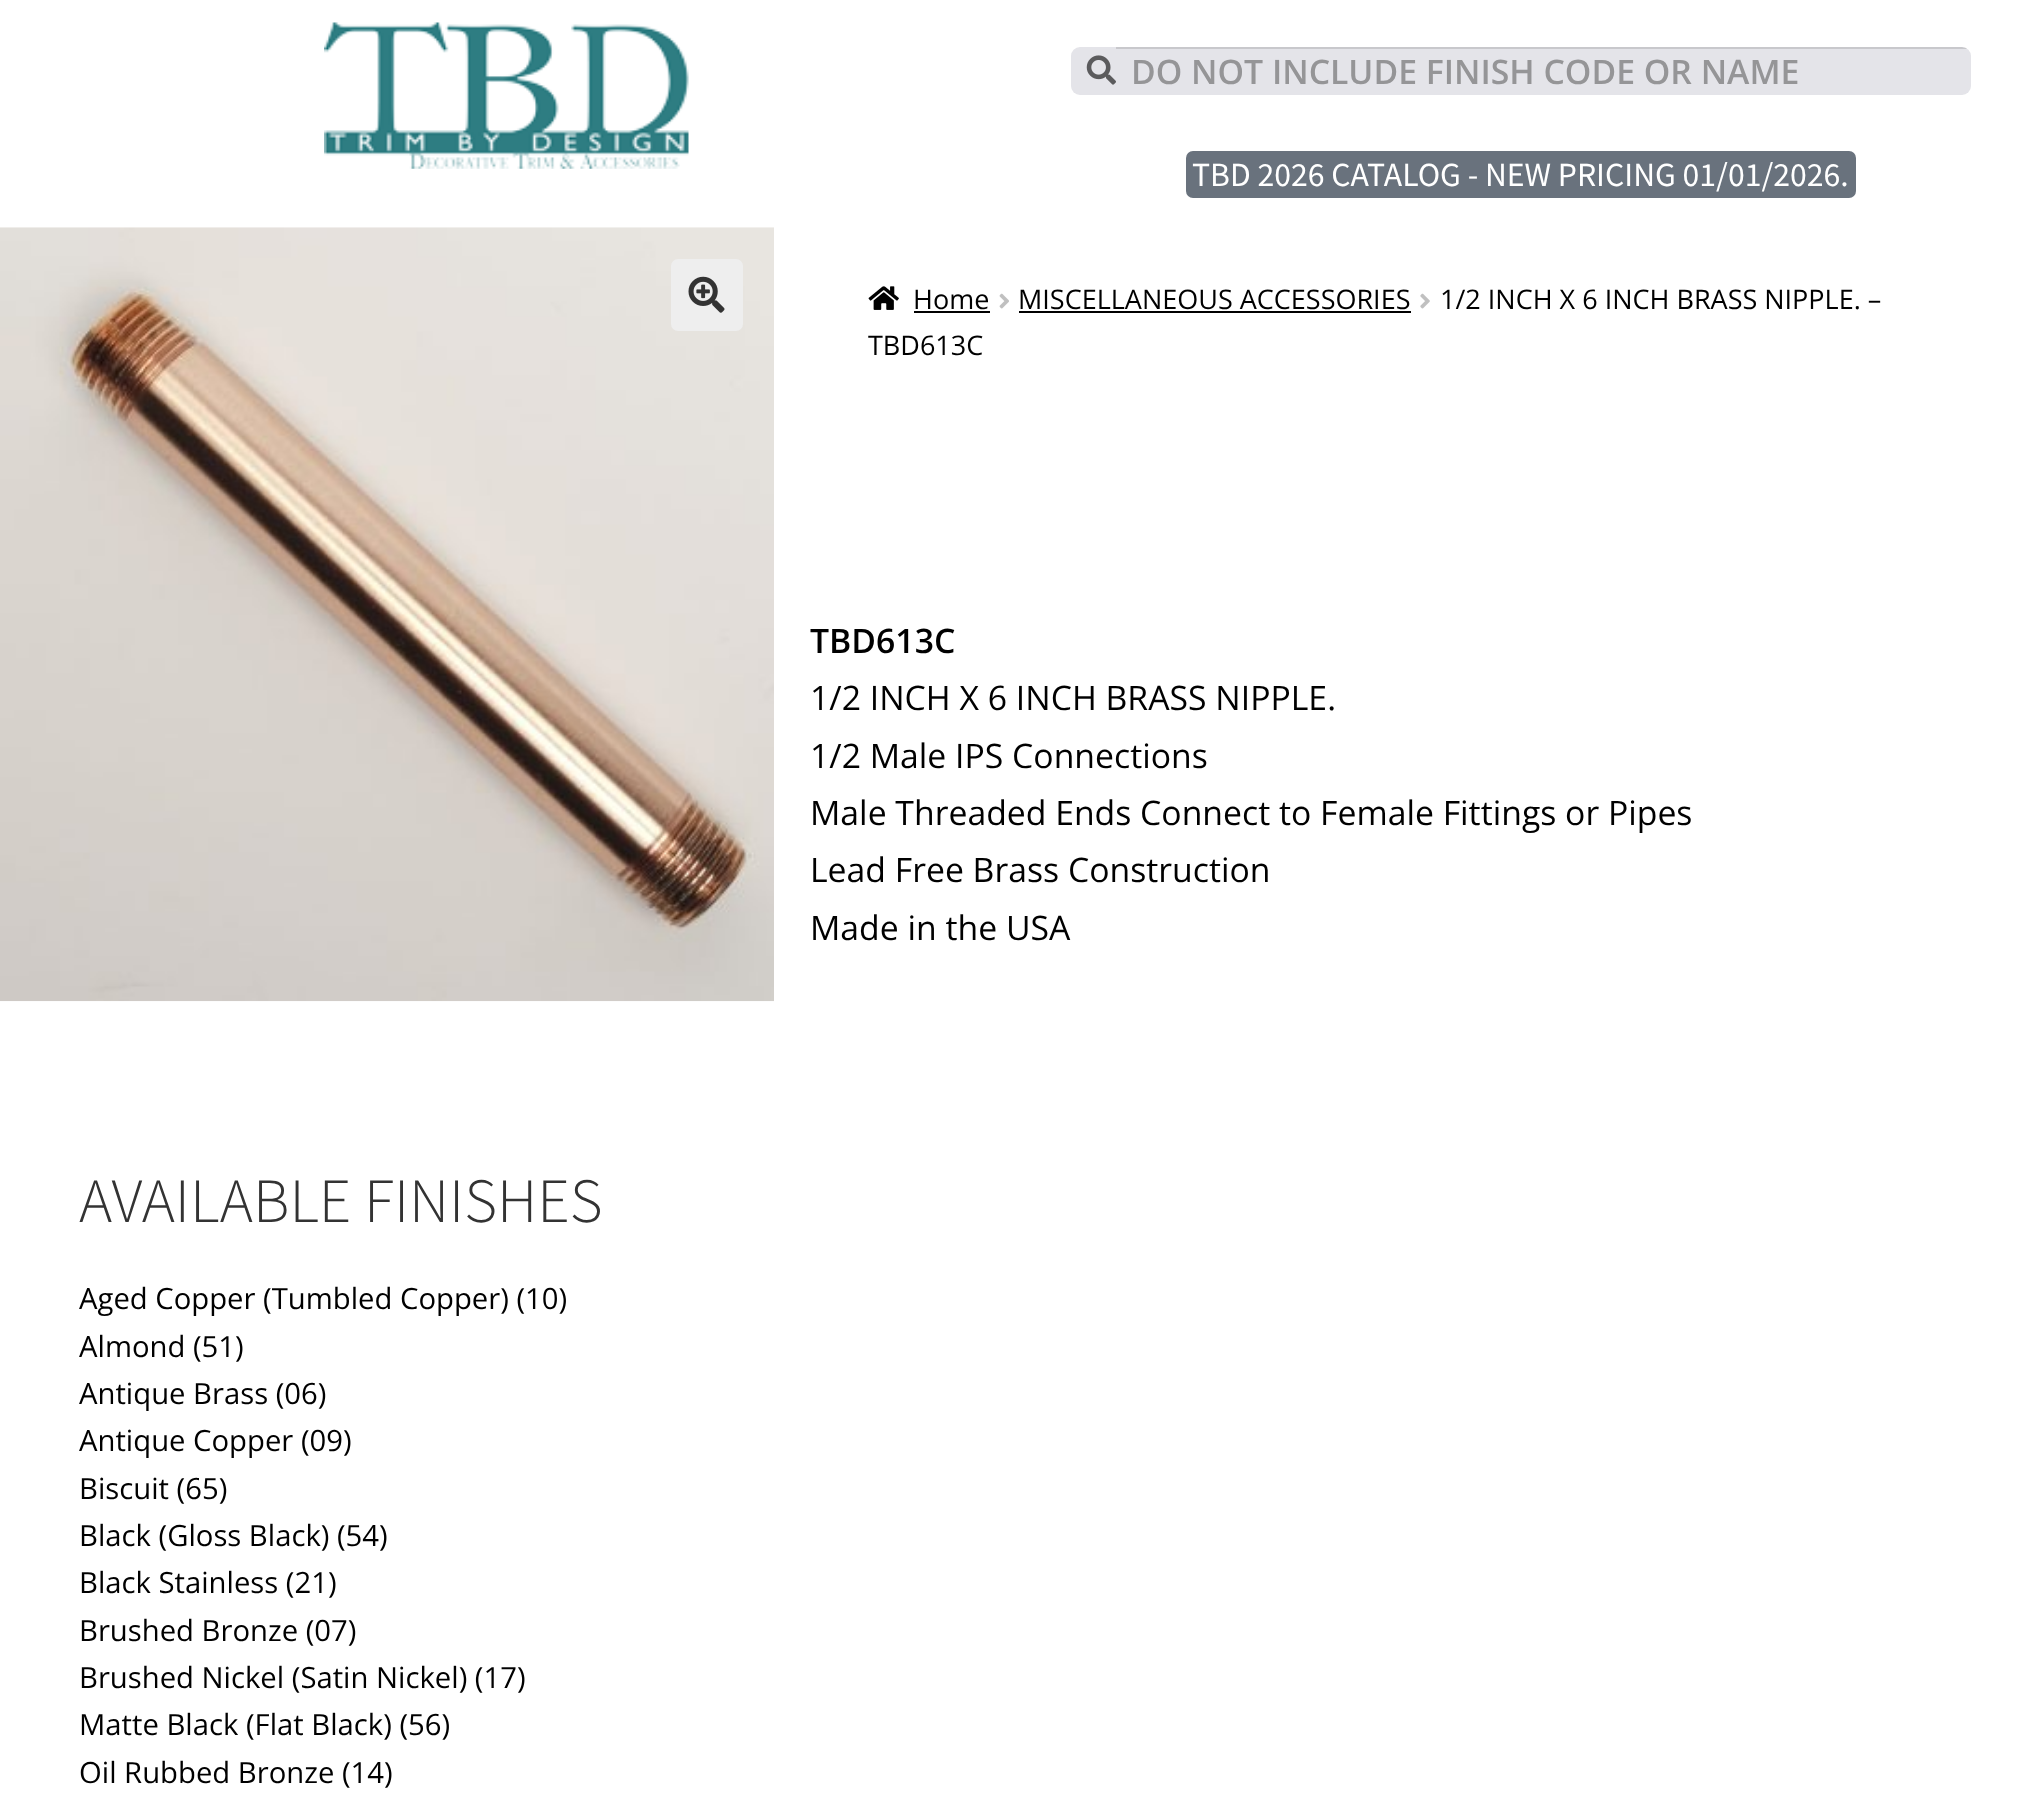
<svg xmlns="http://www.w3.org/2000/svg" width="2026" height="1817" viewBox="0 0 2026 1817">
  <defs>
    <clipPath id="clip1"><rect x="1071" y="47" width="900" height="48" rx="9"/></clipPath>
  </defs>
  <rect width="100%" height="100%" fill="#ffffff"/>
  <image x="324" y="22" width="365" height="147" href="img1.png"/>
  <rect x="1071" y="47" width="900" height="48" rx="9" fill="#e4e4e9"/>
  <image x="1086" y="55" width="30" height="30" href="img2.png"/>
  <g clip-path="url(#clip1)">
    <rect x="1116" y="47" width="855" height="2" fill="#000000" fill-opacity="0.12"/>
  </g>
  <text x="1131" y="84" font-family="Open Sans" font-size="33.75" font-weight="600" fill="#959597">DO NOT INCLUDE FINISH CODE OR NAME</text>
  <rect x="1186" y="151" width="670" height="47" rx="7" fill="#69727d"/>
  <text x="1192" y="186" font-family="Source Sans Pro" font-size="33.75" fill="#ffffff">TBD 2026 CATALOG - NEW PRICING 01/01/2026.</text>
  <image x="0" y="227" width="774" height="775" href="img3.png"/>
  <rect x="671" y="259" width="72" height="72" rx="7" fill="#eeeeee"/>
  <image x="688" y="276" width="37" height="37" href="img4.png"/>
  <image x="868" y="286" width="31" height="24" href="img5.png"/>
  <text x="913" y="309" font-family="Open Sans" font-size="27" fill="#000000">Home</text>
  <rect x="914" y="311" width="76" height="2" fill="#000000"/>
  <image x="999" y="293" width="10" height="16" href="img6.png"/>
  <text x="1018" y="309" font-family="Open Sans" font-size="27" fill="#000000">MISCELLANEOUS ACCESSORIES</text>
  <rect x="1019" y="311" width="392" height="2" fill="#000000"/>
  <image x="1420" y="293" width="10" height="16" href="img7.png"/>
  <text x="1440" y="309" font-family="Open Sans" font-size="27" fill="#000000">1/2 INCH X 6 INCH BRASS NIPPLE. –</text>
  <text x="868" y="355" font-family="Open Sans" font-size="27" fill="#000000">TBD613C</text>
  <text x="810" y="653" font-family="Open Sans" font-size="33.75" font-weight="600" fill="#000000">TBD613C</text>
  <text x="810" y="710" font-family="Open Sans" font-size="33.75" fill="#000000">1/2 INCH X 6 INCH BRASS NIPPLE.</text>
  <text x="810" y="768" font-family="Open Sans" font-size="33.75" fill="#000000">1/2 Male IPS Connections</text>
  <text x="810" y="825" font-family="Open Sans" font-size="33.75" fill="#000000">Male Threaded Ends Connect to Female Fittings or Pipes</text>
  <text x="810" y="882" font-family="Open Sans" font-size="33.75" fill="#000000">Lead Free Brass Construction</text>
  <text x="810" y="940" font-family="Open Sans" font-size="33.75" fill="#000000">Made in the USA</text>
  <text x="79" y="1222" font-family="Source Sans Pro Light" font-size="63" font-weight="300" fill="#333333">AVAILABLE FINISHES</text>
  <text x="79" y="1309" font-family="Open Sans" font-size="29.25" fill="#000000">Aged Copper (Tumbled Copper) (10)</text>
  <text x="79" y="1357" font-family="Open Sans" font-size="29.25" fill="#000000">Almond (51)</text>
  <text x="79" y="1404" font-family="Open Sans" font-size="29.25" fill="#000000">Antique Brass (06)</text>
  <text x="79" y="1451" font-family="Open Sans" font-size="29.25" fill="#000000">Antique Copper (09)</text>
  <text x="79" y="1499" font-family="Open Sans" font-size="29.25" fill="#000000">Biscuit (65)</text>
  <text x="79" y="1546" font-family="Open Sans" font-size="29.25" fill="#000000">Black (Gloss Black) (54)</text>
  <text x="79" y="1593" font-family="Open Sans" font-size="29.25" fill="#000000">Black Stainless (21)</text>
  <text x="79" y="1641" font-family="Open Sans" font-size="29.25" fill="#000000">Brushed Bronze (07)</text>
  <text x="79" y="1688" font-family="Open Sans" font-size="29.25" fill="#000000">Brushed Nickel (Satin Nickel) (17)</text>
  <text x="79" y="1735" font-family="Open Sans" font-size="29.25" fill="#000000">Matte Black (Flat Black) (56)</text>
  <text x="79" y="1783" font-family="Open Sans" font-size="29.25" fill="#000000">Oil Rubbed Bronze (14)</text>
</svg>
